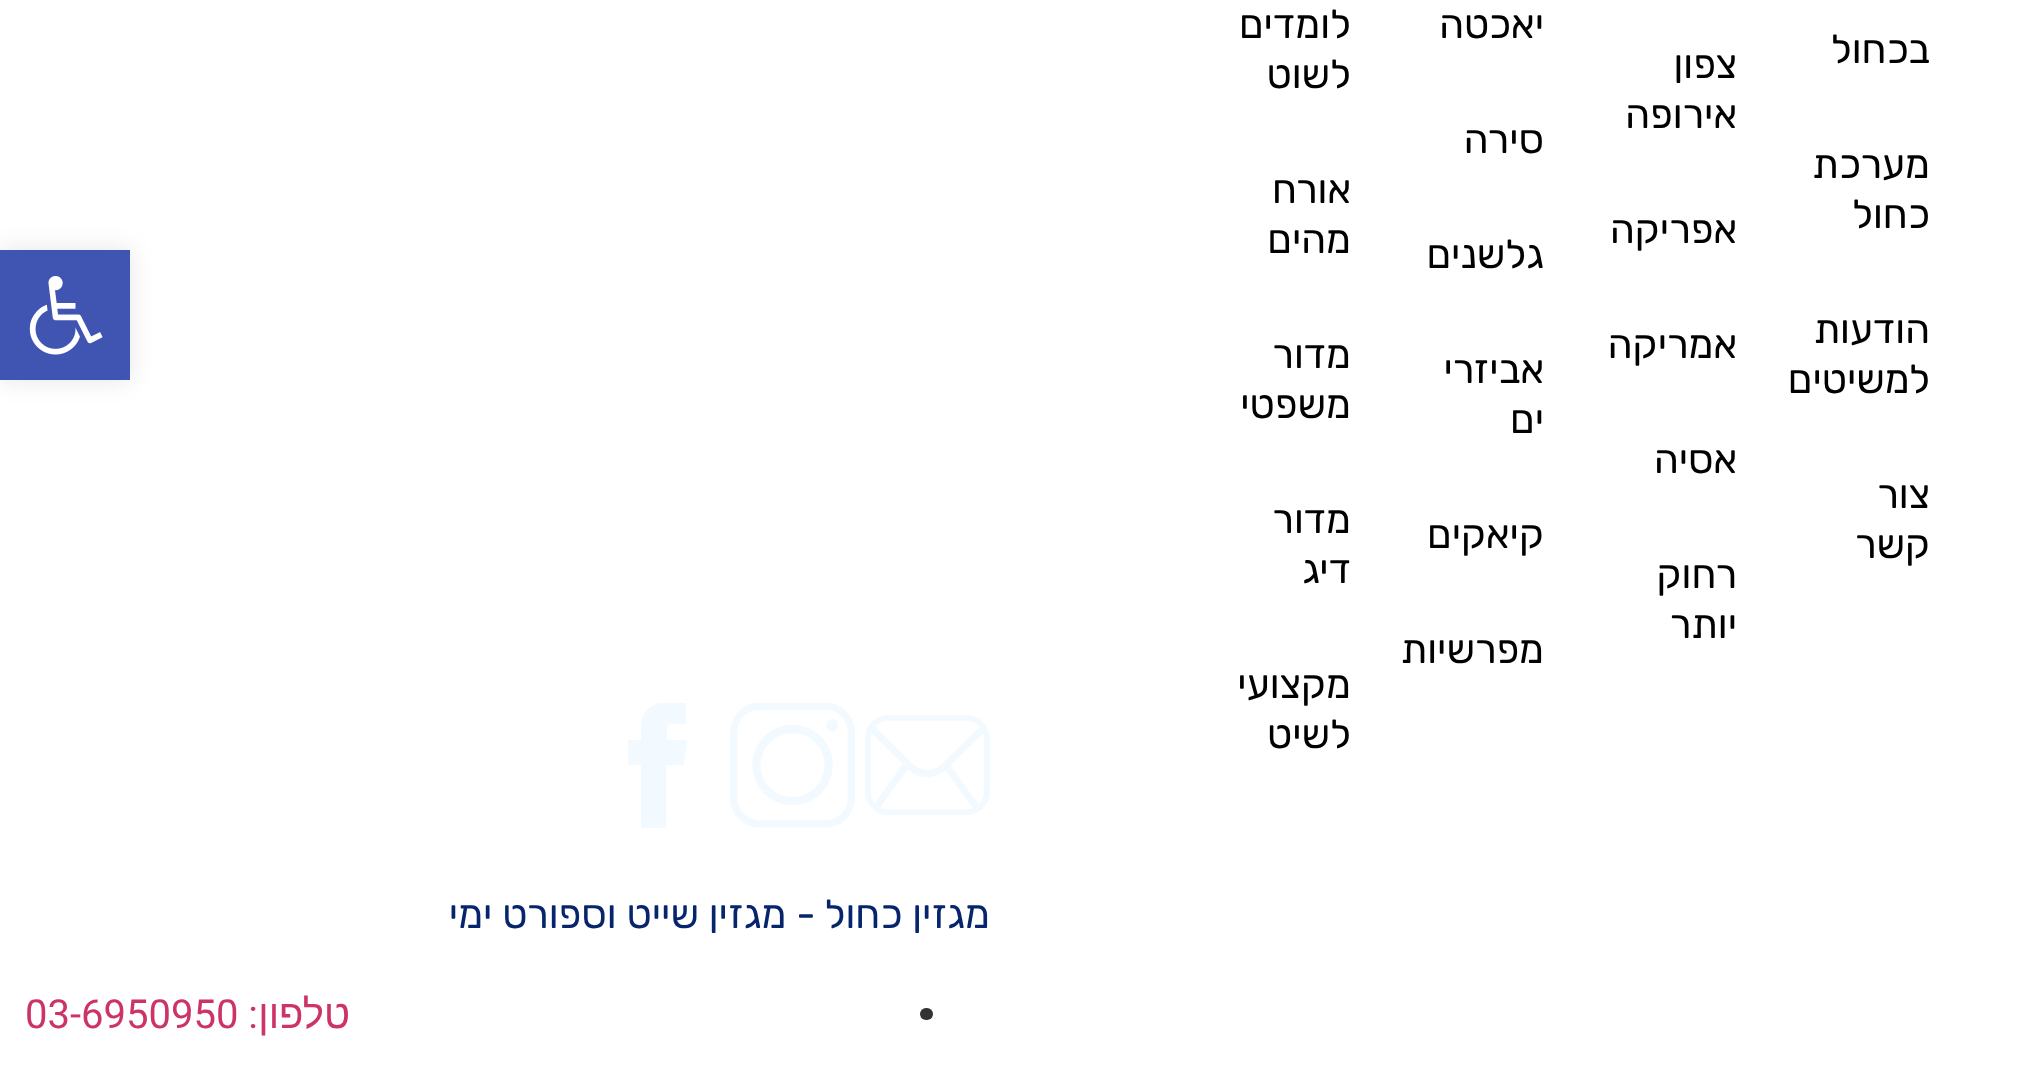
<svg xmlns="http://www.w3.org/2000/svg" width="2028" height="1087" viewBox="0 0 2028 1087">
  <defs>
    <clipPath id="clip1"><rect x="595" y="703" width="125" height="125"/></clipPath>
    <filter id="blur1" x="-50%" y="-200%" width="200%" height="500%"><feGaussianBlur stdDeviation="12.5"/></filter>
  </defs>
  <rect width="100%" height="100%" fill="#ffffff"/>
  <text x="1930" y="63" font-family="Rubik" font-size="40" direction="rtl" fill="#000000">בכחול</text>
  <text x="1930" y="178" font-family="Rubik" font-size="40" direction="rtl" fill="#000000">מערכת</text>
  <text x="1930" y="228" font-family="Rubik" font-size="40" direction="rtl" fill="#000000">כחול</text>
  <text x="1930" y="343" font-family="Rubik" font-size="40" direction="rtl" fill="#000000">הודעות</text>
  <text x="1930" y="393" font-family="Rubik" font-size="40" direction="rtl" fill="#000000">למשיטים</text>
  <text x="1930" y="508" font-family="Rubik" font-size="40" direction="rtl" fill="#000000">צור</text>
  <text x="1930" y="558" font-family="Rubik" font-size="40" direction="rtl" fill="#000000">קשר</text>
  <text x="1737" y="78" font-family="Rubik" font-size="40" direction="rtl" fill="#000000">צפון</text>
  <text x="1737" y="128" font-family="Rubik" font-size="40" direction="rtl" fill="#000000">אירופה</text>
  <text x="1737" y="243" font-family="Rubik" font-size="40" direction="rtl" fill="#000000">אפריקה</text>
  <text x="1737" y="358" font-family="Rubik" font-size="40" direction="rtl" fill="#000000">אמריקה</text>
  <text x="1737" y="473" font-family="Rubik" font-size="40" direction="rtl" fill="#000000">אסיה</text>
  <text x="1737" y="588" font-family="Rubik" font-size="40" direction="rtl" fill="#000000">רחוק</text>
  <text x="1737" y="638" font-family="Rubik" font-size="40" direction="rtl" fill="#000000">יותר</text>
  <text x="1544" y="38" font-family="Rubik" font-size="40" direction="rtl" fill="#000000">יאכטה</text>
  <text x="1544" y="153" font-family="Rubik" font-size="40" direction="rtl" fill="#000000">סירה</text>
  <text x="1544" y="268" font-family="Rubik" font-size="40" direction="rtl" fill="#000000">גלשנים</text>
  <text x="1544" y="383" font-family="Rubik" font-size="40" direction="rtl" fill="#000000">אביזרי</text>
  <text x="1544" y="433" font-family="Rubik" font-size="40" direction="rtl" fill="#000000">ים</text>
  <text x="1544" y="548" font-family="Rubik" font-size="40" direction="rtl" fill="#000000">קיאקים</text>
  <text x="1544" y="663" font-family="Rubik" font-size="40" direction="rtl" fill="#000000">מפרשיות</text>
  <text x="1351" y="38" font-family="Rubik" font-size="40" direction="rtl" fill="#000000">לומדים</text>
  <text x="1351" y="88" font-family="Rubik" font-size="40" direction="rtl" fill="#000000">לשוט</text>
  <text x="1351" y="203" font-family="Rubik" font-size="40" direction="rtl" fill="#000000">אורח</text>
  <text x="1351" y="253" font-family="Rubik" font-size="40" direction="rtl" fill="#000000">מהים</text>
  <text x="1351" y="368" font-family="Rubik" font-size="40" direction="rtl" fill="#000000">מדור</text>
  <text x="1351" y="418" font-family="Rubik" font-size="40" direction="rtl" fill="#000000">משפטי</text>
  <text x="1351" y="533" font-family="Rubik" font-size="40" direction="rtl" fill="#000000">מדור</text>
  <text x="1351" y="583" font-family="Rubik" font-size="40" direction="rtl" fill="#000000">דיג</text>
  <text x="1351" y="698" font-family="Rubik" font-size="40" direction="rtl" fill="#000000">מקצועי</text>
  <text x="1351" y="748" font-family="Rubik" font-size="40" direction="rtl" fill="#000000">לשיט</text>
  <image x="865" y="715" width="125" height="100" href="img1.png"/>
  <image x="730" y="703" width="125" height="125" href="img2.png"/>
  <g clip-path="url(#clip1)">
    <path d="M667 740C667 721 666 724 686 724V702L662 703C657 703 653 705 649 708C639 717 641 728 641 740H628V765H641V828H666V765H684L687 740Z" fill="#f2faff"/>
  </g>
  <text x="990" y="928" font-family="Rubik" font-size="40" direction="rtl" fill="#06256d">מגזין כחול - מגזין שייט וספורט ימי</text>
  <rect x="920" y="1008" width="13" height="12" rx="6" fill="#333333"/>
  <text x="350" y="1028" font-family="Liberation Sans" font-size="40" direction="rtl" fill="#cc3366">טלפון</text>
  <text x="258" y="1028" font-family="Roboto" font-size="40" direction="rtl" fill="#cc3366">:</text>
  <text x="25" y="1028" font-family="Roboto" font-size="40" fill="#cc3366">03-6950950</text>
  <rect x="0" y="250" width="130" height="130" fill="#000000" fill-opacity="0.1" filter="url(#blur1)"/>
  <rect x="0" y="250" width="130" height="130" fill="#4054b2"/>
  <image x="29" y="276" width="74" height="79" href="img3.png"/>
</svg>
